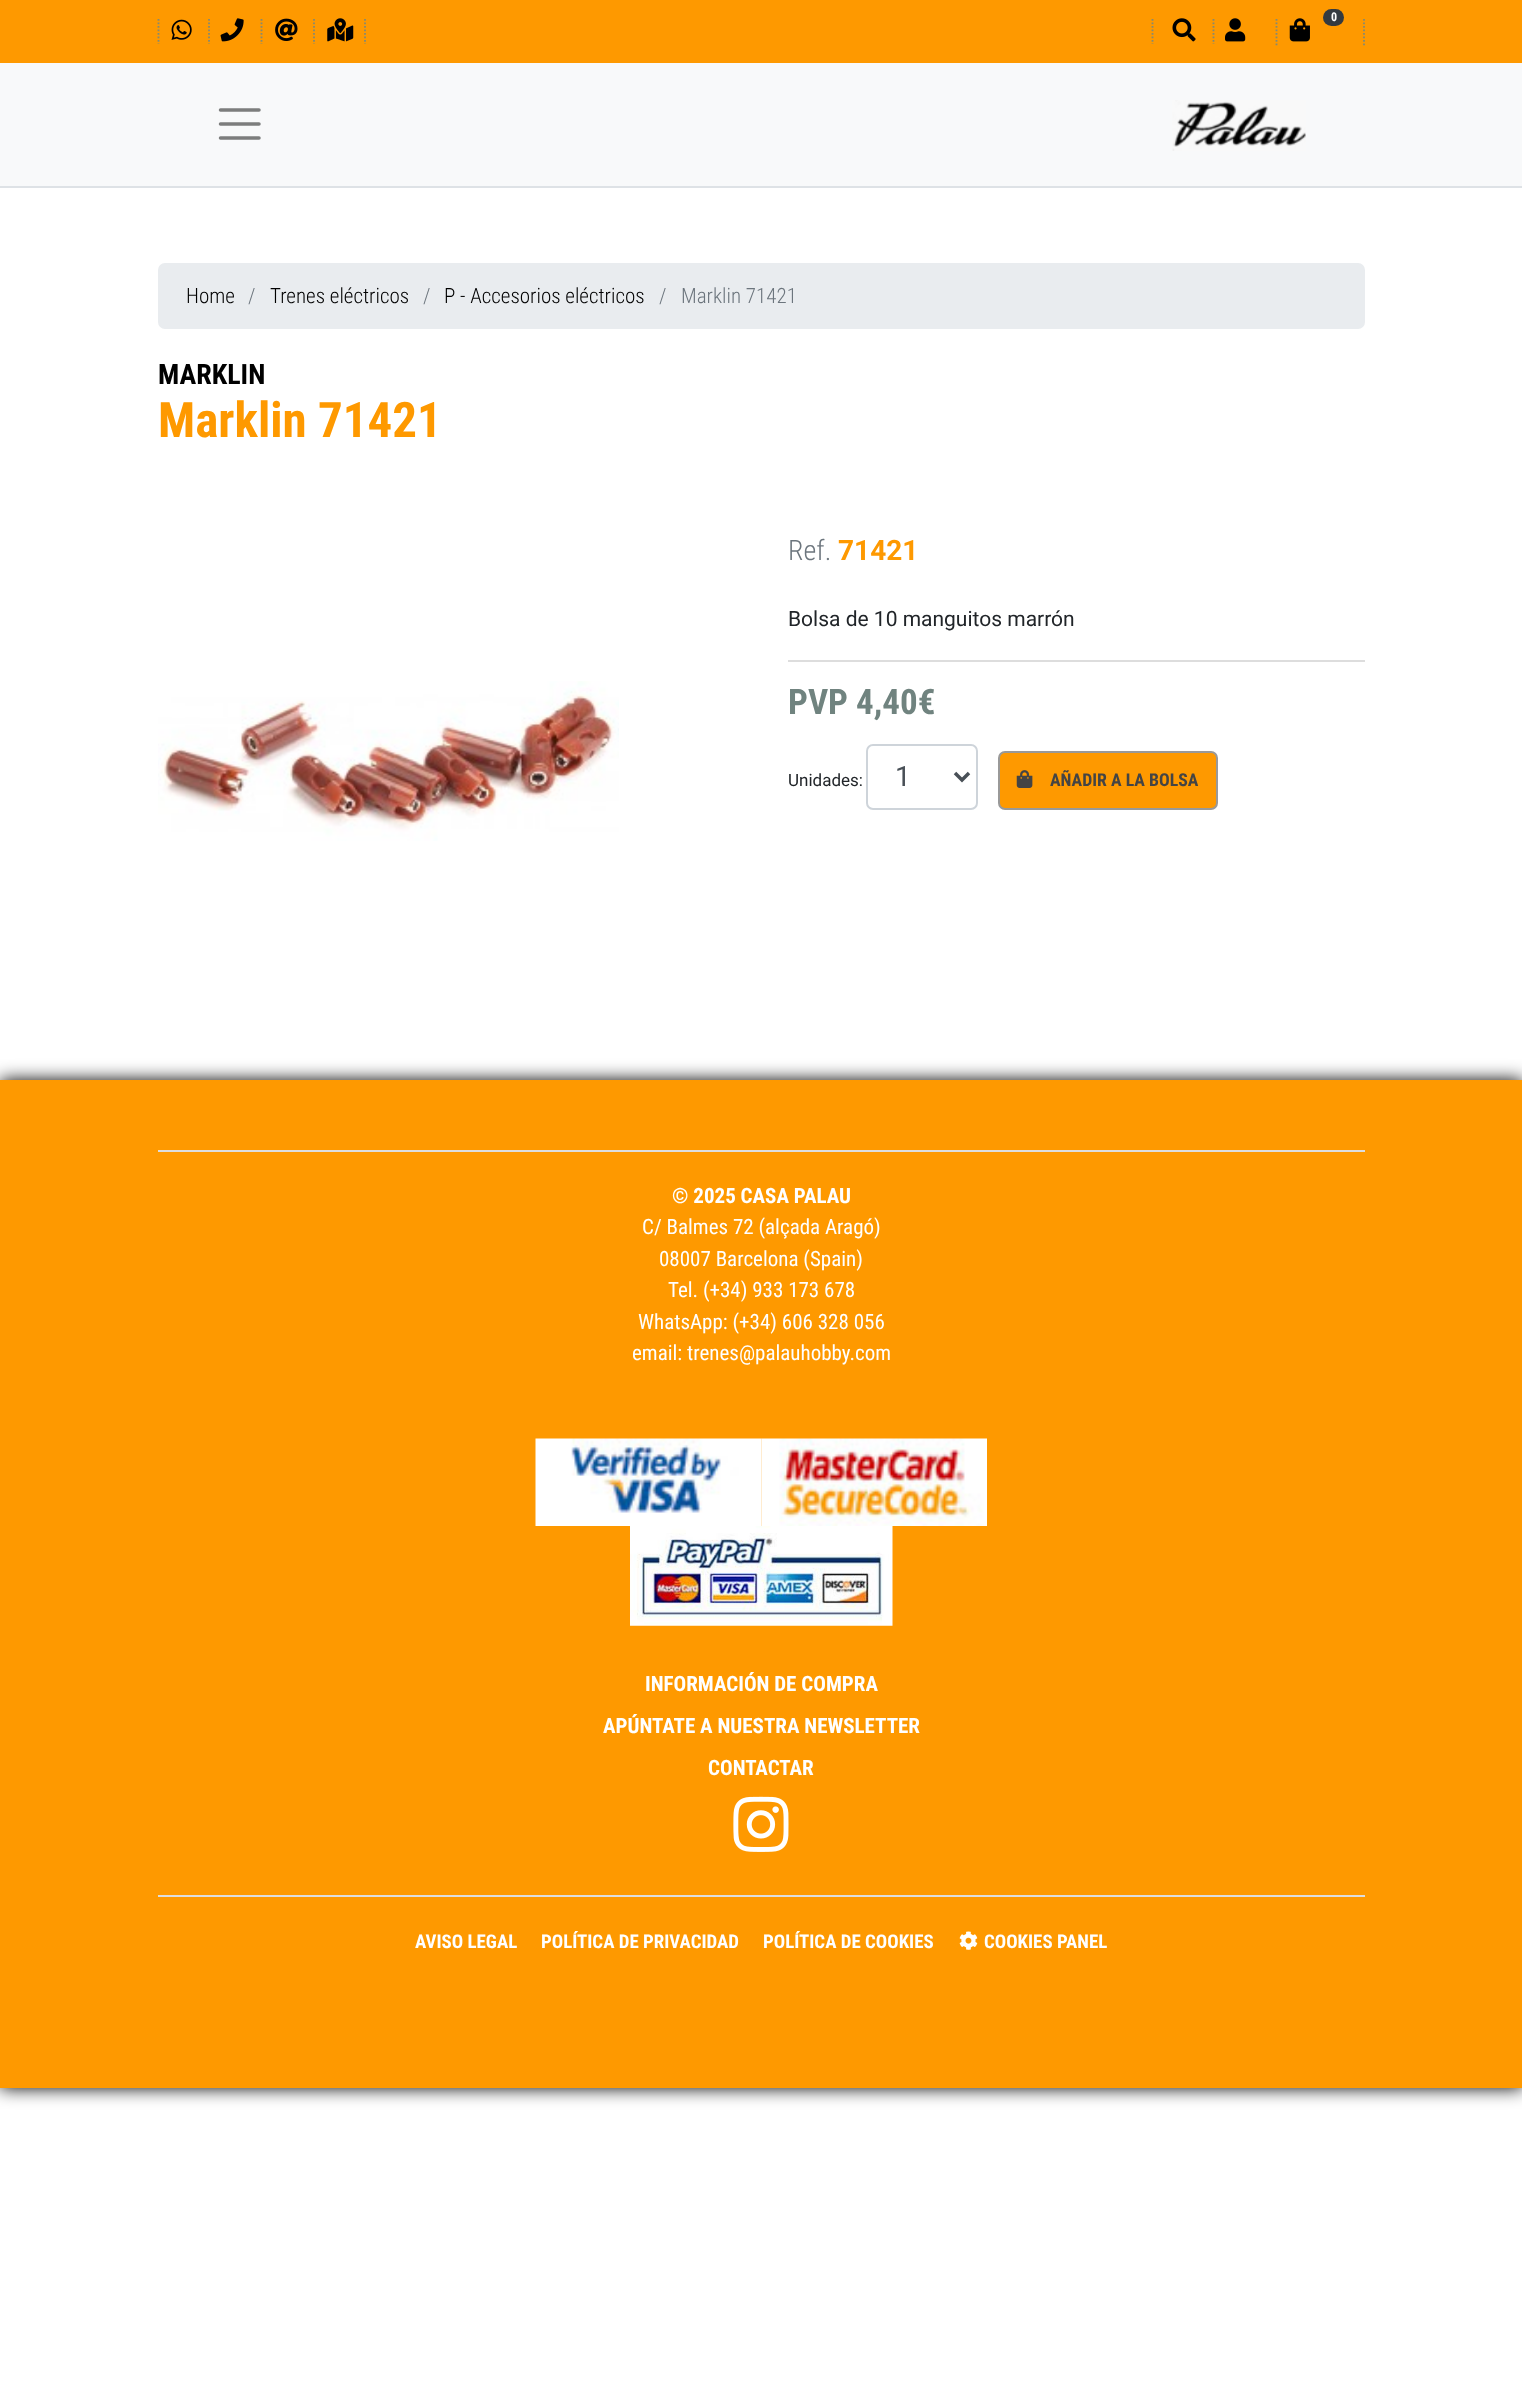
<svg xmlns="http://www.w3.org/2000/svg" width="1522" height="2397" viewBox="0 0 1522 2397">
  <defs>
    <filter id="blur1" x="-50%" y="-200%" width="200%" height="500%"><feGaussianBlur stdDeviation="9"/></filter>
  </defs>
  <rect width="100%" height="100%" fill="#ffffff"/>
  <rect x="0" y="0" width="1522" height="63" fill="#fe9900"/>
  <path d="M1364 19V45.5" fill="none" stroke="#868971" stroke-width="1.8" stroke-dasharray="1.75 1.75"/>
  <path d="M1276.5 19V45.5" fill="none" stroke="#868971" stroke-width="1.8" stroke-dasharray="1.75 1.75"/>
  <rect x="1323" y="9" width="21" height="17" rx="8.5" fill="#343a40"/>
  <text x="1331" y="21" font-family="Roboto Condensed" font-size="12" font-weight="bold" fill="#ffffff">0</text>
  <image x="1289" y="18" width="21" height="24" href="img1.png"/>
  <path d="M1152.5 19V44" fill="none" stroke="#868971" stroke-width="1.8" stroke-dasharray="1.75 1.75"/>
  <image x="1172" y="18" width="24" height="24" href="img2.png"/>
  <path d="M1213.5 19V44" fill="none" stroke="#868971" stroke-width="1.8" stroke-dasharray="1.75 1.75"/>
  <image x="1225" y="18" width="21" height="24" href="img3.png"/>
  <path d="M158.5 19V44" fill="none" stroke="#868971" stroke-width="1.8" stroke-dasharray="1.75 1.75"/>
  <image x="171" y="19" width="21" height="21" href="img4.png"/>
  <path d="M209 19V44" fill="none" stroke="#868971" stroke-width="1.8" stroke-dasharray="1.75 1.75"/>
  <image x="220" y="18" width="24" height="24" href="img5.png"/>
  <path d="M261.5 19V44" fill="none" stroke="#868971" stroke-width="1.8" stroke-dasharray="1.75 1.75"/>
  <image x="275" y="18" width="23" height="23" href="img6.png"/>
  <path d="M365 19V44M314 19V44" fill="none" stroke="#868971" stroke-width="1.8" stroke-dasharray="1.75 1.75"/>
  <image x="327" y="18" width="27" height="24" href="img7.png"/>
  <rect x="0" y="63" width="1522" height="123" fill="#f8f9fa"/>
  <rect x="0" y="186" width="1522" height="2" fill="#dee2e6"/>
  <path d="M220.5 110H259M220.5 124H259M220.5 138H259" fill="none" stroke="#7c7d7d" stroke-width="3.5" stroke-linecap="round"/>
  <image x="1172" y="100" width="134" height="51" href="img8.png"/>
  <rect x="158" y="263" width="1207" height="66" rx="7" fill="#e9ecef"/>
  <text x="186" y="303" font-family="Roboto Condensed" font-size="21" font-weight="300" fill="#000000">Home</text>
  <text x="248" y="303" font-family="Roboto Condensed" font-size="21" font-weight="300" fill="#6c757d">/</text>
  <text x="270" y="303" font-family="Roboto Condensed" font-size="21" font-weight="300" fill="#000000">Trenes eléctricos</text>
  <text x="423" y="303" font-family="Roboto Condensed" font-size="21" font-weight="300" fill="#6c757d">/</text>
  <text x="444" y="303" font-family="Roboto Condensed" font-size="21" font-weight="300" fill="#000000">P - Accesorios eléctricos</text>
  <text x="659" y="303" font-family="Roboto Condensed" font-size="21" font-weight="300" fill="#6c757d">/</text>
  <text x="681" y="303" font-family="Roboto Condensed" font-size="21" font-weight="300" fill="#6c757d">Marklin 71421</text>
  <text x="158" y="384" font-family="Roboto Condensed" font-size="28" font-weight="bold" fill="#000000">MARKLIN</text>
  <text x="158" y="437" font-family="Roboto Condensed" font-size="49" font-weight="bold" fill="#fe9900">Marklin 71421</text>
  <image x="158" y="681" width="461" height="160" href="img9.png"/>
  <text x="788" y="560" font-family="Roboto Condensed" font-size="28" font-weight="300" fill="#6c757d">Ref.</text>
  <text x="838" y="560" font-family="Roboto" font-size="28" font-weight="bold" fill="#fe9900">71421</text>
  <text x="788" y="626" font-family="Roboto" font-size="21" fill="#212529">Bolsa de 10 manguitos marrón</text>
  <rect x="788" y="660" width="577" height="2" fill="#dddddd"/>
  <text x="788" y="714" font-family="Roboto Condensed" font-size="35" font-weight="bold" fill="#70837f">PVP 4,40€</text>
  <text x="788" y="786" font-family="Roboto" font-size="17" fill="#212529">Unidades:</text>
  <rect x="867" y="745" width="110" height="64" rx="6" fill="none" stroke="#ced4da" stroke-width="2"/>
  <path d="M955 773L962 780L969 773" fill="none" stroke="#495057" stroke-width="3.5"/>
  <text x="895" y="786" font-family="Roboto" font-size="28" fill="#495057">1</text>
  <rect x="999" y="752" width="218" height="57" rx="6" fill="#fe9900" stroke="#999999" stroke-width="2"/>
  <image x="1016" y="770" width="17" height="18" href="img10.png"/>
  <text x="1050" y="786" font-family="Roboto Condensed" font-size="17.75" font-weight="bold" fill="#444444">AÑADIR A LA BOLSA</text>
  <rect x="0" y="1080" width="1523" height="1008" fill="#000000" filter="url(#blur1)"/>
  <rect x="0" y="1080" width="1522" height="1008" fill="#fe9900"/>
  <rect x="158" y="1150" width="1207" height="2" fill="#dddddd"/>
  <text x="672" y="1203" font-family="Roboto Condensed" font-size="21" font-weight="bold" fill="#ffffff">© 2025 CASA PALAU</text>
  <text x="642" y="1234" font-family="Roboto Condensed" font-size="21" fill="#ffffff">C/ Balmes 72 (alçada Aragó)</text>
  <text x="659" y="1266" font-family="Roboto Condensed" font-size="21" fill="#ffffff">08007 Barcelona (Spain)</text>
  <text x="668" y="1297" font-family="Roboto Condensed" font-size="21" fill="#ffffff">Tel. (+34) 933 173 678</text>
  <text x="638" y="1329" font-family="Roboto Condensed" font-size="21" fill="#ffffff">WhatsApp: (+34) 606 328 056</text>
  <text x="632" y="1360" font-family="Roboto Condensed" font-size="21" fill="#ffffff">email: trenes@palauhobby.com</text>
  <image x="535" y="1438" width="227" height="88" href="img11.png"/>
  <image x="761" y="1438" width="226" height="88" href="img12.png"/>
  <image x="630" y="1526" width="263" height="100" href="img13.png"/>
  <text x="645" y="1691" font-family="Roboto Condensed" font-size="21" font-weight="bold" fill="#ffffff">INFORMACIÓN DE COMPRA</text>
  <text x="603" y="1733" font-family="Roboto Condensed" font-size="21" font-weight="bold" fill="#ffffff">APÚNTATE A NUESTRA NEWSLETTER</text>
  <text x="708" y="1775" font-family="Roboto Condensed" font-size="21" font-weight="bold" fill="#ffffff">CONTACTAR</text>
  <image x="733" y="1796" width="56" height="56" href="img14.png"/>
  <rect x="158" y="1895" width="1207" height="2" fill="#dddddd"/>
  <text x="415" y="1948" font-family="Roboto Condensed" font-size="18.9" font-weight="bold" fill="#ffffff">AVISO LEGAL</text>
  <text x="541" y="1948" font-family="Roboto Condensed" font-size="18.9" font-weight="bold" fill="#ffffff">POLÍTICA DE PRIVACIDAD</text>
  <text x="763" y="1948" font-family="Roboto Condensed" font-size="18.9" font-weight="bold" fill="#ffffff">POLÍTICA DE COOKIES</text>
  <image x="959" y="1931" width="19" height="19" href="img15.png"/>
  <text x="984" y="1948" font-family="Roboto Condensed" font-size="18.9" font-weight="bold" fill="#ffffff">COOKIES PANEL</text>
</svg>
